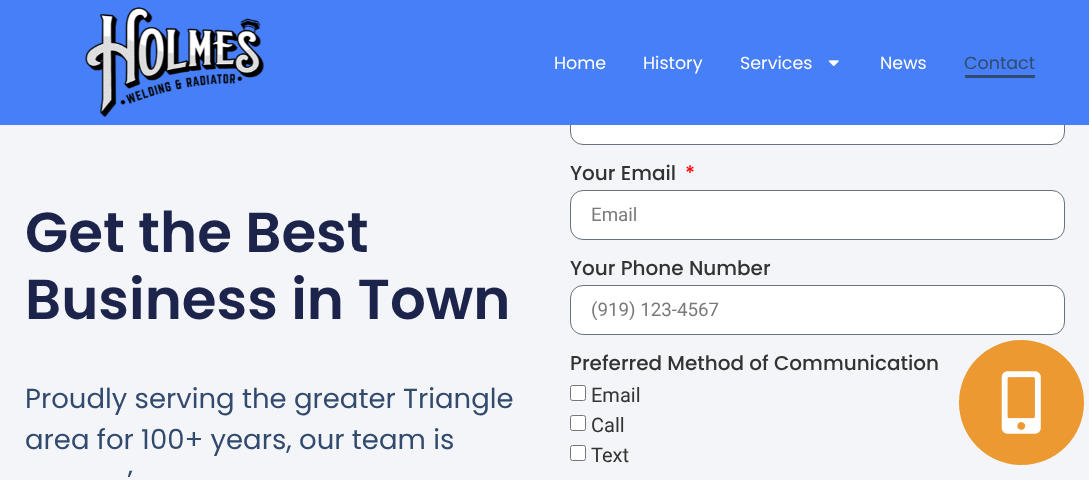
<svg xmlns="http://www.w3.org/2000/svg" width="1089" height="480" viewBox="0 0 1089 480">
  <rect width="100%" height="100%" fill="#f3f5f8"/>
  <rect x="570.5" y="95.5" width="494" height="49" rx="12.5" fill="#ffffff" stroke="#69727d"/>
  <rect x="0" y="0" width="1089" height="125" fill="#467ff7"/>
  <image x="85" y="7" width="179" height="110" href="img1.png"/>
  <text x="554" y="69" font-family="Poppins" font-size="17.5" fill="#ffffff">Home</text>
  <text x="643" y="69" font-family="Poppins" font-size="17.5" fill="#ffffff">History</text>
  <text x="740" y="69" font-family="Poppins" font-size="17.5" fill="#ffffff">Services</text>
  <image x="828" y="60" width="11" height="6" href="img2.png"/>
  <text x="880" y="69" font-family="Poppins" font-size="17.5" fill="#ffffff">News</text>
  <text x="964" y="69" font-family="Poppins" font-size="17.5" fill="#324a6d">Contact</text>
  <rect x="965" y="75" width="70" height="3" fill="#324a6d"/>
  <text x="25" y="252" font-family="Poppins" font-size="56.25" font-weight="600" fill="#1c244b">Get the Best</text>
  <text x="25" y="319" font-family="Poppins" font-size="56.25" font-weight="600" fill="#1c244b">Business in Town</text>
  <text x="25" y="408" font-family="Poppins" font-size="27.5" fill="#324a6d">Proudly serving the greater Triangle</text>
  <text x="25" y="449" font-family="Poppins" font-size="27.5" fill="#324a6d">area for 100+ years, our team is</text>
  <text x="127" y="490" font-family="Poppins" font-size="27.5" fill="#324a6d">’</text>
  <text x="570" y="180" font-family="Poppins" font-size="20" font-weight="500" fill="#333333">Your Email</text>
  <text x="685" y="180" font-family="Poppins" font-size="20" font-weight="500" fill="#ff0000">*</text>
  <rect x="570.5" y="190.5" width="494" height="49" rx="12.5" fill="#ffffff" stroke="#69727d"/>
  <text x="591" y="221" font-family="Roboto" font-size="18.75" fill="#797a7c">Email</text>
  <text x="570" y="275" font-family="Poppins" font-size="20" font-weight="500" fill="#333333">Your Phone Number</text>
  <rect x="570.5" y="285.5" width="494" height="49" rx="12.5" fill="#ffffff" stroke="#69727d"/>
  <text x="591" y="316" font-family="Roboto" font-size="18.75" fill="#797a7c">(919) 123-4567</text>
  <text x="570" y="370" font-family="Poppins" font-size="20" font-weight="500" fill="#333333">Preferred Method of Communication</text>
  <rect x="570.5" y="385.5" width="15" height="15" rx="2" fill="#ffffff" stroke="#767676"/>
  <text x="591" y="402" font-family="Roboto" font-size="20" fill="#333333">Email</text>
  <rect x="570.5" y="415.5" width="15" height="15" rx="2" fill="#ffffff" stroke="#767676"/>
  <text x="591" y="432" font-family="Roboto" font-size="20" fill="#333333">Call</text>
  <rect x="570.5" y="445.5" width="15" height="15" rx="2" fill="#ffffff" stroke="#767676"/>
  <text x="591" y="462" font-family="Roboto" font-size="20" fill="#333333">Text</text>
  <circle cx="1021.5" cy="402.5" r="62.5" fill="#eb9930"/>
  <image x="1001" y="371" width="40" height="63" href="img3.png"/>
</svg>
